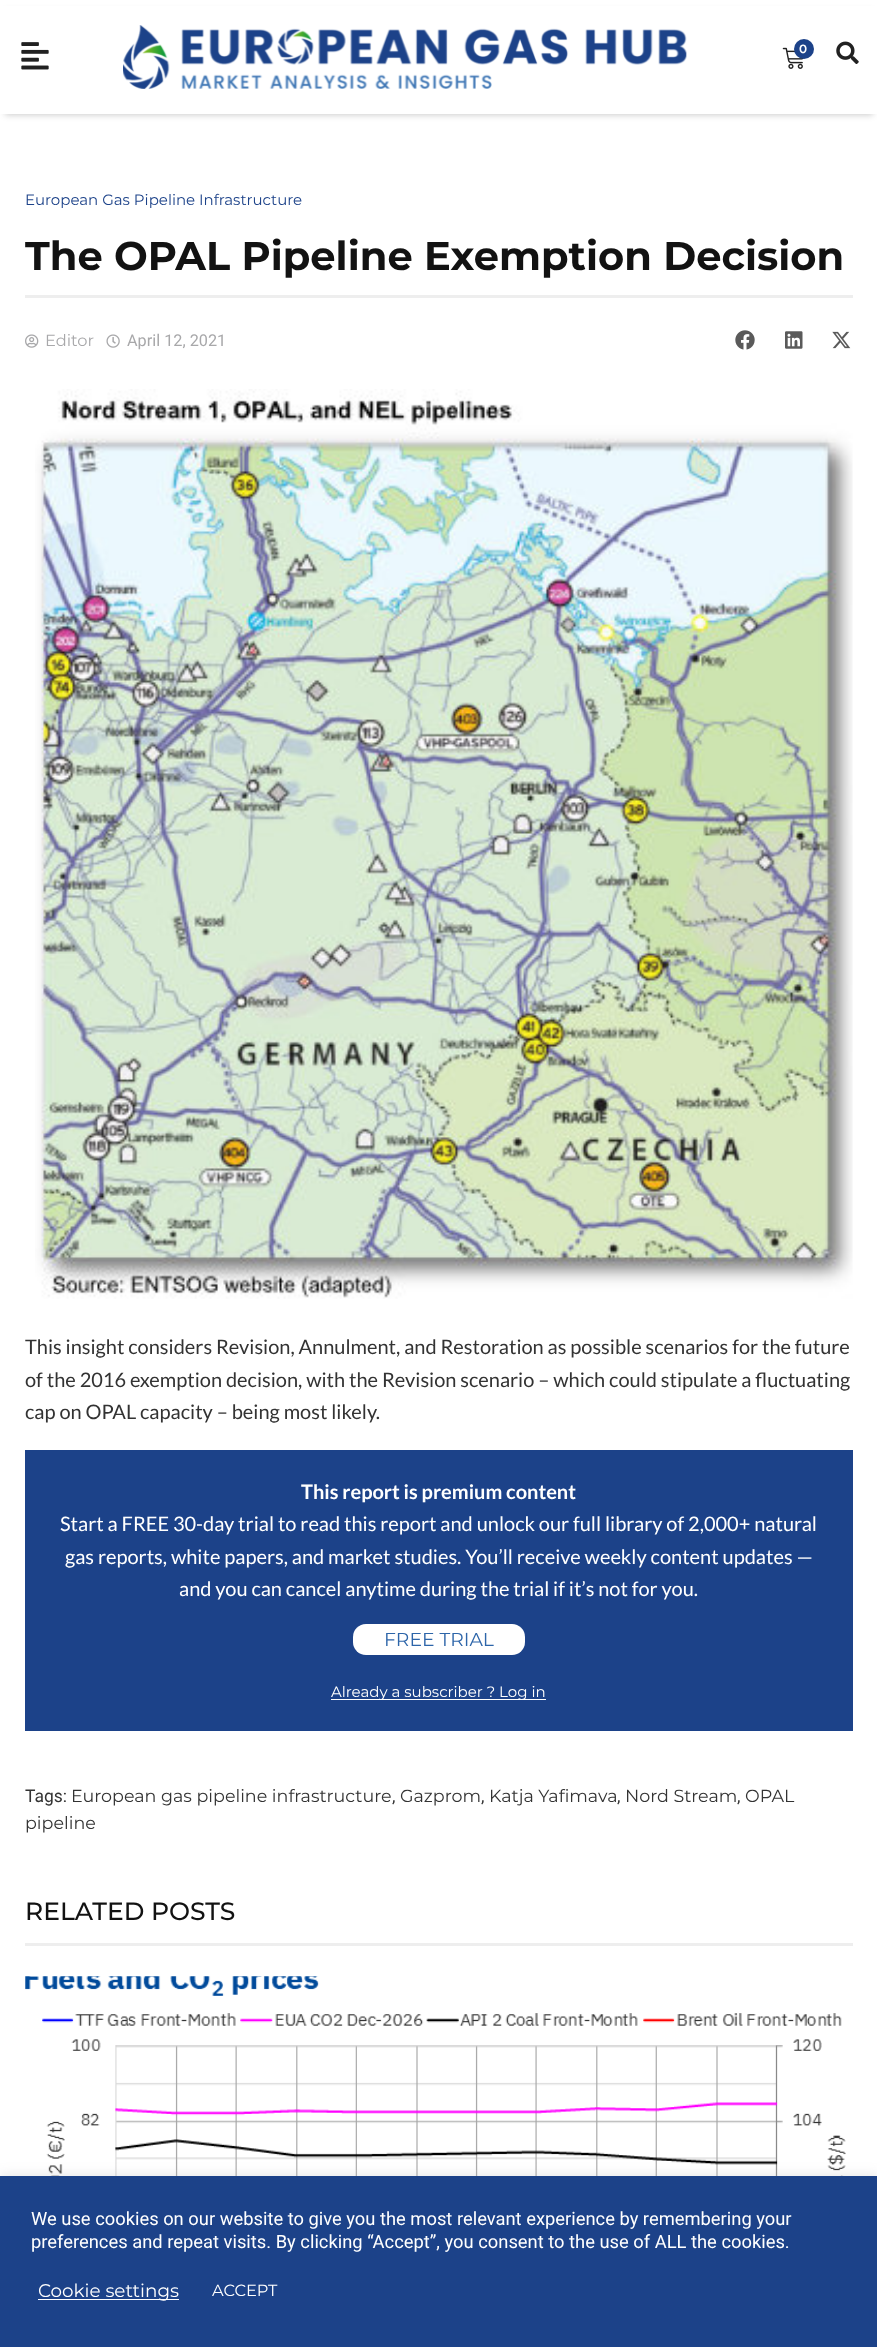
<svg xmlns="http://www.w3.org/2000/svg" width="877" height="2347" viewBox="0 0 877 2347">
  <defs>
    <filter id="blur1" x="-50%" y="-200%" width="200%" height="500%"><feGaussianBlur stdDeviation="3"/></filter>
    <filter id="blur2" x="-50%" y="-200%" width="200%" height="500%"><feGaussianBlur stdDeviation="6"/></filter>
  </defs>
  <rect width="100%" height="100%" fill="#ffffff"/>
  <rect x="5" y="11" width="868" height="104" fill="#000000" fill-opacity="0.2" filter="url(#blur1)"/>
  <rect x="0" y="6" width="877" height="108" fill="#ffffff"/>
  <image x="21" y="42" width="28" height="28" href="img1.png"/>
  <image x="123" y="25" width="564" height="64" href="img2.png"/>
  <image x="782" y="47" width="22" height="22" href="img3.png"/>
  <circle cx="804" cy="49" r="10" fill="#1c4289"/>
  <text x="799" y="53" font-family="Montserrat" font-size="12" font-weight="600" fill="#ffffff">0</text>
  <image x="836" y="41" width="23" height="23" href="img4.png"/>
  <text x="25" y="205" font-family="Montserrat" font-size="15" fill="#1c4289">European Gas Pipeline Infrastructure</text>
  <text x="25" y="270" font-family="Montserrat" font-size="40" font-weight="bold" fill="#121212">The OPAL Pipeline Exemption Decision</text>
  <rect x="25" y="295" width="828" height="3" fill="#eeeeee"/>
  <image x="25" y="334" width="14" height="14" href="img5.png"/>
  <text x="45" y="346" font-family="Montserrat" font-size="16.25" fill="#a8a8aa">Editor</text>
  <image x="106" y="334" width="14" height="14" href="img6.png"/>
  <text x="127" y="346" font-family="Roboto" font-size="16.25" fill="#a8a8aa">April 12, 2021</text>
  <image x="735" y="330" width="20" height="20" href="img7.png"/>
  <image x="785" y="331" width="18" height="18" href="img8.png"/>
  <image x="832" y="331" width="19" height="18" href="img9.png"/>
  <image x="35" y="389" width="818" height="910" href="img10.png"/>
  <text x="25" y="1354" font-family="Lato" font-size="20" fill="#333333">This insight considers Revision, Annulment, and Restoration as possible scenarios for the future</text>
  <text x="25" y="1387" font-family="Lato" font-size="20" fill="#333333">of the 2016 exemption decision, with the Revision scenario – which could stipulate a fluctuating</text>
  <text x="25" y="1419" font-family="Lato" font-size="20" fill="#333333">cap on OPAL capacity – being most likely.</text>
  <rect x="25" y="1450" width="828" height="281" fill="#1c4289"/>
  <text x="301" y="1499" font-family="Lato" font-size="20" font-weight="bold" fill="#ffffff">This report is premium content</text>
  <text x="60" y="1531" font-family="Lato" font-size="20" fill="#ffffff">Start a FREE 30-day trial to read this report and unlock our full library of 2,000+ natural</text>
  <text x="65" y="1564" font-family="Lato" font-size="20" fill="#ffffff">gas reports, white papers, and market studies. You’ll receive weekly content updates —</text>
  <text x="179" y="1596" font-family="Lato" font-size="20" fill="#ffffff">and you can cancel anytime during the trial if it’s not for you.</text>
  <rect x="353" y="1624" width="172" height="31" rx="13" fill="#ffffff"/>
  <text x="384" y="1646" font-family="Montserrat" font-size="18.75" fill="#2d65a9">FREE TRIAL</text>
  <rect x="331" y="1699" width="215" height="1" fill="#ffffff"/>
  <text x="331" y="1697" font-family="Montserrat" font-size="15" fill="#ffffff">Already a subscriber ? Log in</text>
  <text x="25" y="1802" font-family="Roboto" font-size="17.5" fill="#333333">Tags:</text>
  <text x="71" y="1802" font-family="Montserrat" font-size="17.5" fill="#333333">European gas pipeline infrastructure</text>
  <text x="392" y="1802" font-family="Roboto" font-size="17.5" fill="#333333">,</text>
  <text x="400" y="1802" font-family="Montserrat" font-size="17.5" fill="#333333">Gazprom</text>
  <text x="481" y="1802" font-family="Roboto" font-size="17.5" fill="#333333">,</text>
  <text x="489" y="1802" font-family="Montserrat" font-size="17.5" fill="#333333">Katja Yafimava</text>
  <text x="617" y="1802" font-family="Roboto" font-size="17.5" fill="#333333">,</text>
  <text x="625" y="1802" font-family="Montserrat" font-size="17.5" fill="#333333">Nord Stream</text>
  <text x="737" y="1802" font-family="Roboto" font-size="17.5" fill="#333333">,</text>
  <text x="745" y="1802" font-family="Montserrat" font-size="17.5" fill="#333333">OPAL</text>
  <text x="25" y="1829" font-family="Montserrat" font-size="17.5" fill="#333333">pipeline</text>
  <text x="25" y="1920" font-family="Montserrat" font-size="25" font-weight="500" fill="#121212">RELATED POSTS</text>
  <rect x="25" y="1943" width="828" height="3" fill="#eeeeee"/>
  <image x="25" y="1976" width="821" height="200" href="img11.png"/>
  <rect x="0" y="2175" width="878" height="171" fill="#acabab" fill-opacity="0.3" filter="url(#blur2)"/>
  <rect x="0" y="2176" width="877" height="171" fill="#1c4289"/>
  <text x="31" y="2225" font-family="Roboto" font-size="18.35" fill="#ffffff">We use cookies on our website to give you the most relevant experience by remembering your</text>
  <text x="31" y="2248" font-family="Roboto" font-size="18.35" fill="#ffffff">preferences and repeat visits. By clicking “Accept”, you consent to the use of ALL the cookies.</text>
  <rect x="38" y="2299" width="141" height="1" fill="#ffffff"/>
  <text x="38" y="2297" font-family="Montserrat" font-size="18.35" fill="#ffffff">Cookie settings</text>
  <text x="212" y="2296" font-family="Montserrat" font-size="16.25" fill="#ffffff">ACCEPT</text>
</svg>
